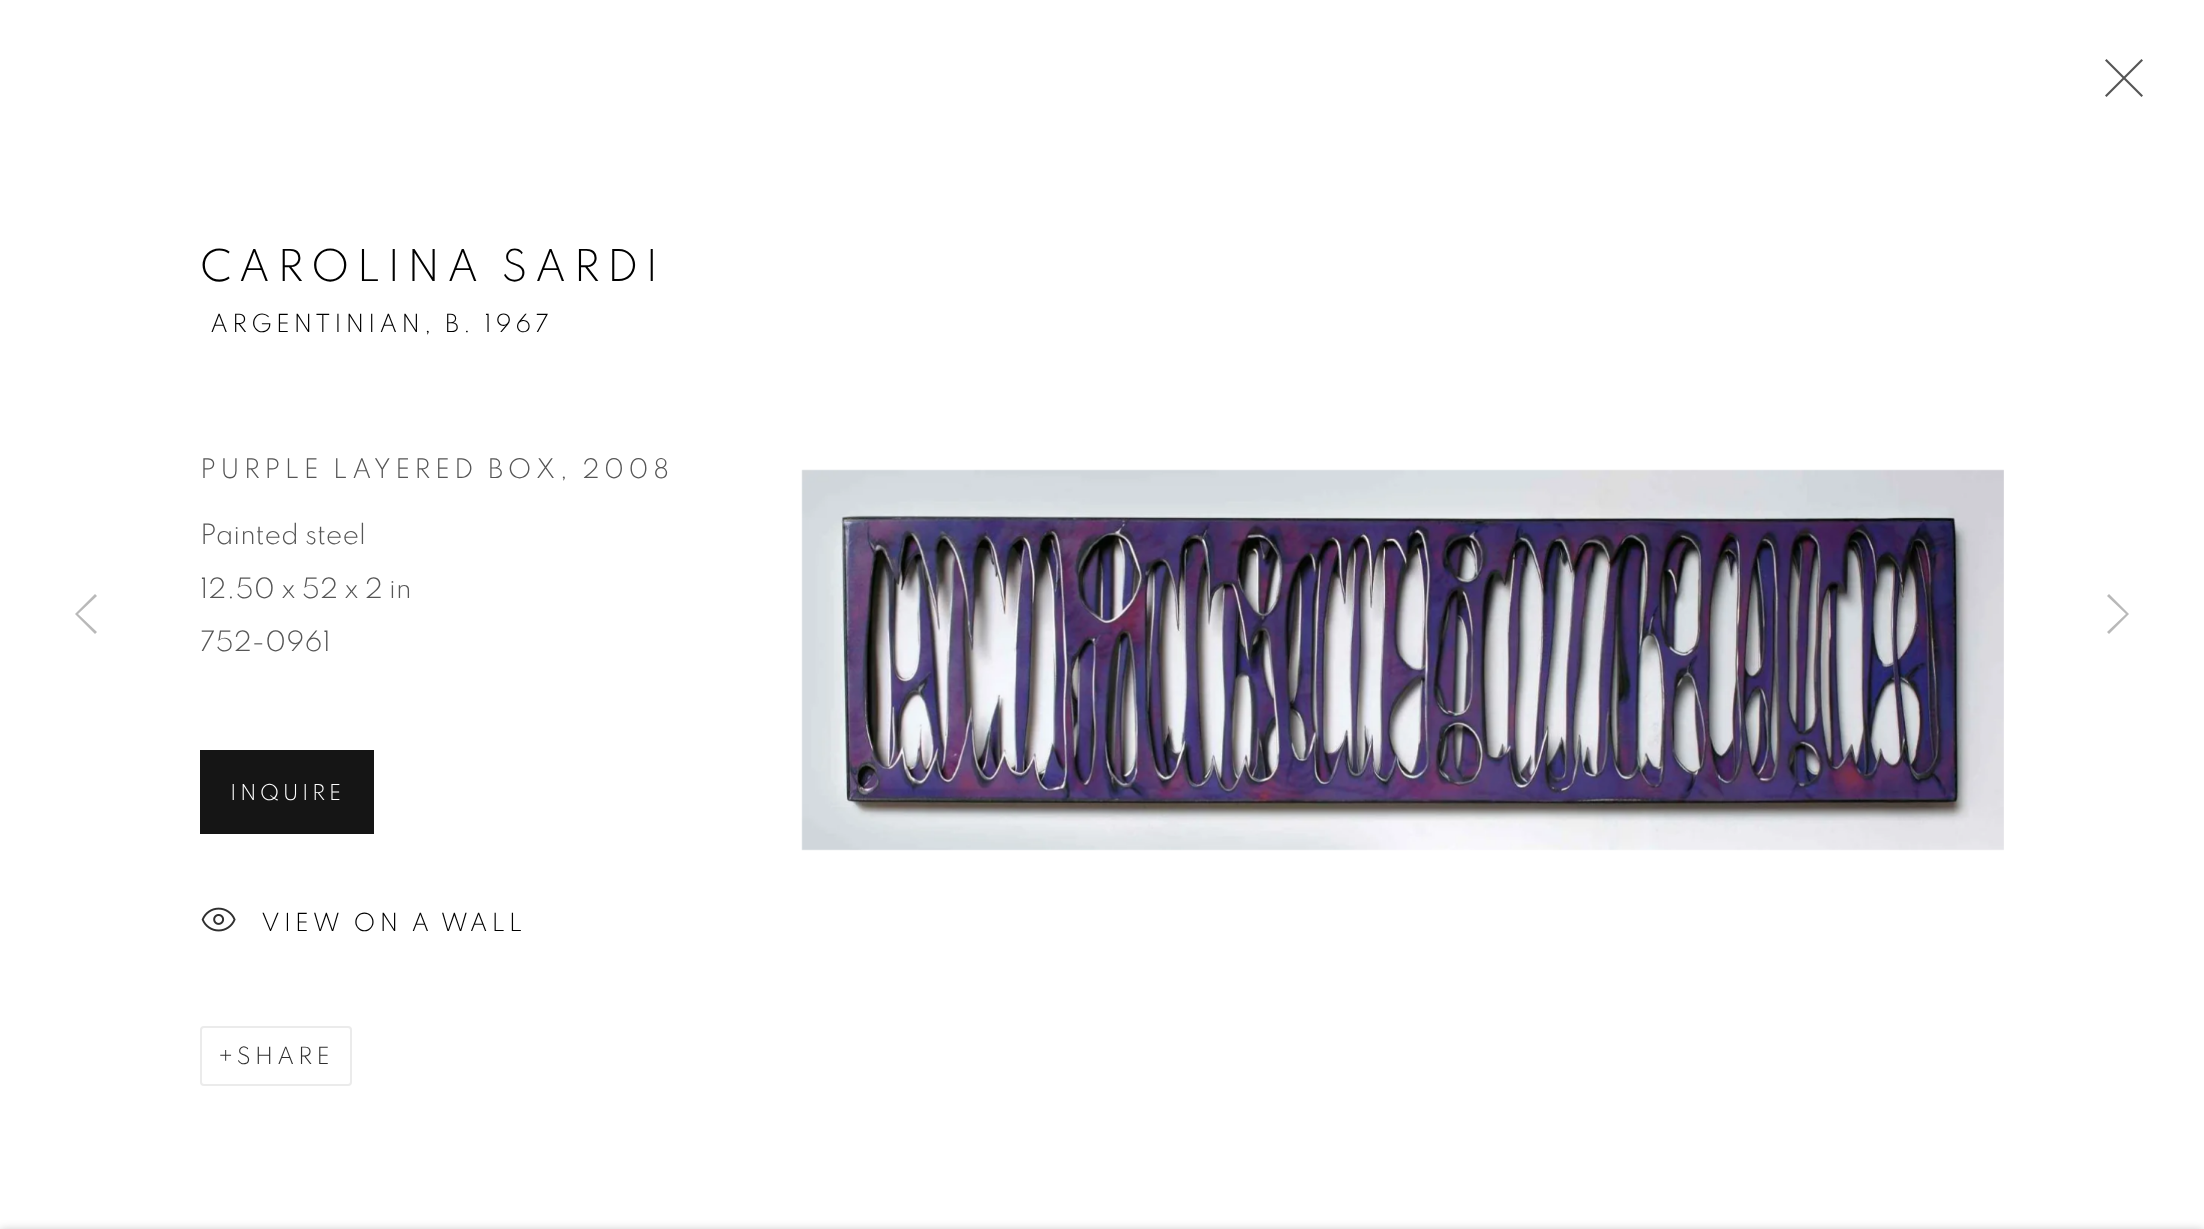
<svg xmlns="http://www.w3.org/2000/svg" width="2204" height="1229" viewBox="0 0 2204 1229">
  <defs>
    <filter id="blur1" x="-50%" y="-200%" width="200%" height="500%"><feGaussianBlur stdDeviation="5"/></filter>
  </defs>
  <rect width="100%" height="100%" fill="#ffffff"/>
  <path d="M2143 60.5L2141.5 59L2124 76.5L2106.5 59L2105 60.5L2122.5 78L2105 95.5L2106.5 97L2124 79.5L2141.5 97L2143 95.5L2125.5 78Z" fill="#555555"/>
  <text x="200" y="281" font-family="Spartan" font-size="45.1" font-weight="300" letter-spacing="6.75" fill="#000000">CAROLINA SARDI</text>
  <text x="210" y="332" font-family="Spartan" font-size="25.6" font-weight="300" letter-spacing="3.8" fill="#000000">ARGENTINIAN, B. 1967</text>
  <text x="200" y="478" font-family="Spartan" font-size="27.7" font-weight="300" letter-spacing="4.15" fill="#565656">PURPLE LAYERED BOX, 2008</text>
  <text x="200" y="544" font-family="Spartan" font-size="28.75" font-weight="300" fill="#565656">Painted steel</text>
  <text x="200" y="598" font-family="Spartan" font-size="28.75" font-weight="300" fill="#565656">12.50 x 52 x 2 in</text>
  <text x="200" y="651" font-family="Spartan" font-size="28.75" font-weight="300" fill="#565656">752-0961</text>
  <rect x="200" y="750" width="174" height="84" fill="#151515"/>
  <text x="230" y="800" font-family="Spartan" font-size="22.5" font-weight="300" letter-spacing="3.5" fill="#ffffff">INQUIRE</text>
  <image x="201" y="907" width="35" height="25" href="img1.png"/>
  <text x="261" y="931" font-family="Spartan" font-size="25.6" font-weight="300" letter-spacing="3.75" fill="#000000">VIEW ON A WALL</text>
  <rect x="201" y="1027" width="150" height="58" rx="3" fill="none" stroke="#ebebeb" stroke-width="2"/>
  <text x="218" y="1064" font-family="Spartan" font-size="24.5" font-weight="300" letter-spacing="3.75" fill="#2f2f2f">+SHARE</text>
  <image x="801" y="469" width="1203" height="382" href="img2.png"/>
  <path d="M77 616L95 634L97 632L78 614L97 596L95 594L75 614Z" fill="#b9b9b9"/>
  <path d="M2129 614L2109 594L2107 596L2126 614L2107 632L2109 634Z" fill="#b9b9b9"/>
  <rect x="0" y="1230" width="2204" height="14" fill="#000000" fill-opacity="0.23" filter="url(#blur1)"/>
</svg>
